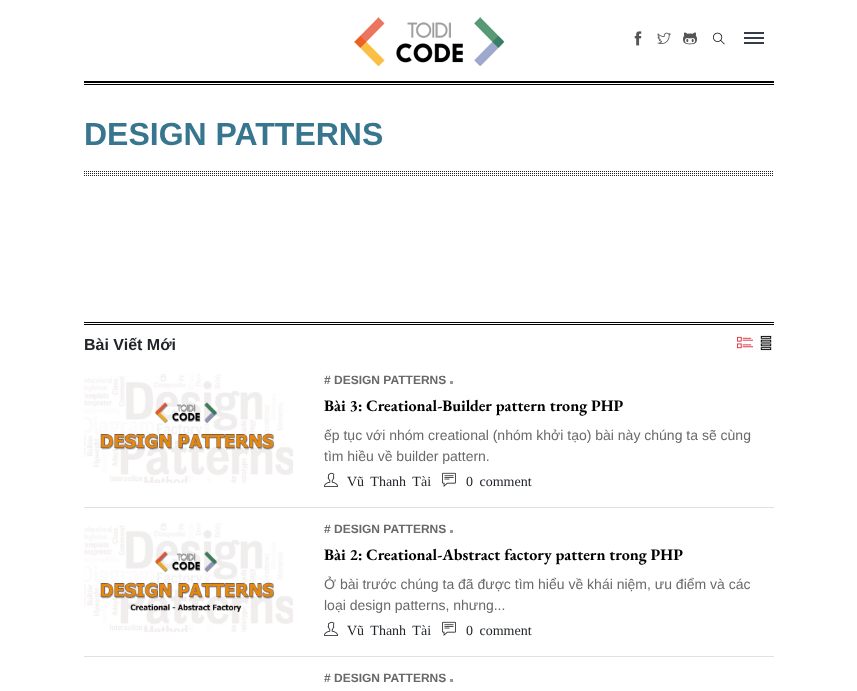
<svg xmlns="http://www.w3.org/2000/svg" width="857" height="691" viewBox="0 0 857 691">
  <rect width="100%" height="100%" fill="#ffffff"/>
  <image x="354" y="17" width="150" height="49" href="img1.png"/>
  <image x="634" y="31" width="8" height="15" href="img2.png"/>
  <image x="657" y="32" width="14" height="13" href="img3.png"/>
  <image x="683" y="32" width="14" height="13" href="img4.png"/>
  <image x="713" y="32" width="12" height="13" href="img5.png"/>
  <rect x="744" y="42" width="20" height="2" fill="#353c49"/>
  <rect x="744" y="32" width="20" height="2" fill="#353c49"/>
  <rect x="744" y="37" width="20" height="2" fill="#353c49"/>
  <rect x="84" y="81" width="690" height="2" fill="#000000"/>
  <rect x="84" y="84" width="690" height="1" fill="#000000"/>
  <text x="84" y="145" font-family="Liberation Sans" font-size="32" font-weight="bold" fill="#37768e">DESIGN PATTERNS</text>
  <path d="M84 173.5H774" fill="none" stroke="#222222" stroke-dasharray="1 1"/>
  <path d="M84 171.5H774" fill="none" stroke="#222222" stroke-dasharray="1 1"/>
  <path d="M84 175.5H774" fill="none" stroke="#222222" stroke-dasharray="1 1"/>
  <rect x="84" y="322" width="690" height="1" fill="#000000"/>
  <rect x="84" y="324" width="690" height="1" fill="#000000"/>
  <text x="84" y="350" font-family="Liberation Sans" font-size="16" font-weight="bold" fill="#212529">Bài Viết Mới</text>
  <image x="737" y="336" width="16" height="13" href="img6.png"/>
  <image x="760" y="335" width="12" height="16" href="img7.png"/>
  <image x="84" y="374" width="209" height="109" href="img8.png"/>
  <text x="324" y="384" font-family="Liberation Sans" font-size="12" font-weight="bold" fill="#696969"># DESIGN PATTERNS</text>
  <rect x="450" y="381" width="3" height="3" fill="#999999"/>
  <text x="324" y="411" font-family="EB Garamond" font-size="16" font-weight="bold" fill="#000000">Bài 3: Creational-Builder pattern trong PHP</text>
  <text x="324" y="440" font-family="Liberation Sans" font-size="14" fill="#696969">ếp tục với nhóm creational (nhóm khởi tạo) bài này chúng ta sẽ cùng</text>
  <text x="324" y="461" font-family="Liberation Sans" font-size="14" fill="#696969">tìm hiều về builder pattern.</text>
  <image x="324" y="472" width="14" height="15" href="img9.png"/>
  <text x="347" y="486" word-spacing="3" font-family="Liberation Serif" font-size="14" fill="#212529">Vũ Thanh Tài</text>
  <image x="442" y="472" width="14" height="15" href="img10.png"/>
  <text x="466" y="486" word-spacing="3" font-family="Liberation Serif" font-size="14" fill="#212529">0 comment</text>
  <rect x="84" y="507" width="690" height="1" fill="#e1e1e1"/>
  <image x="84" y="523" width="209" height="109" href="img11.png"/>
  <text x="324" y="533" font-family="Liberation Sans" font-size="12" font-weight="bold" fill="#696969"># DESIGN PATTERNS</text>
  <rect x="450" y="530" width="3" height="3" fill="#999999"/>
  <text x="324" y="560" font-family="EB Garamond" font-size="16" font-weight="bold" fill="#000000">Bài 2: Creational-Abstract factory pattern trong PHP</text>
  <text x="324" y="589" font-family="Liberation Sans" font-size="14" fill="#696969">Ở bài trước chúng ta đã được tìm hiểu về khái niệm, ưu điểm và các</text>
  <text x="324" y="610" font-family="Liberation Sans" font-size="14" fill="#696969">loại design patterns, nhưng...</text>
  <image x="324" y="621" width="14" height="15" href="img9.png"/>
  <text x="347" y="635" word-spacing="3" font-family="Liberation Serif" font-size="14" fill="#212529">Vũ Thanh Tài</text>
  <image x="442" y="621" width="14" height="15" href="img10.png"/>
  <text x="466" y="635" word-spacing="3" font-family="Liberation Serif" font-size="14" fill="#212529">0 comment</text>
  <rect x="84" y="656" width="690" height="1" fill="#e1e1e1"/>
  <text x="324" y="682" font-family="Liberation Sans" font-size="12" font-weight="bold" fill="#696969"># DESIGN PATTERNS</text>
  <rect x="450" y="679" width="3" height="3" fill="#999999"/>
</svg>
